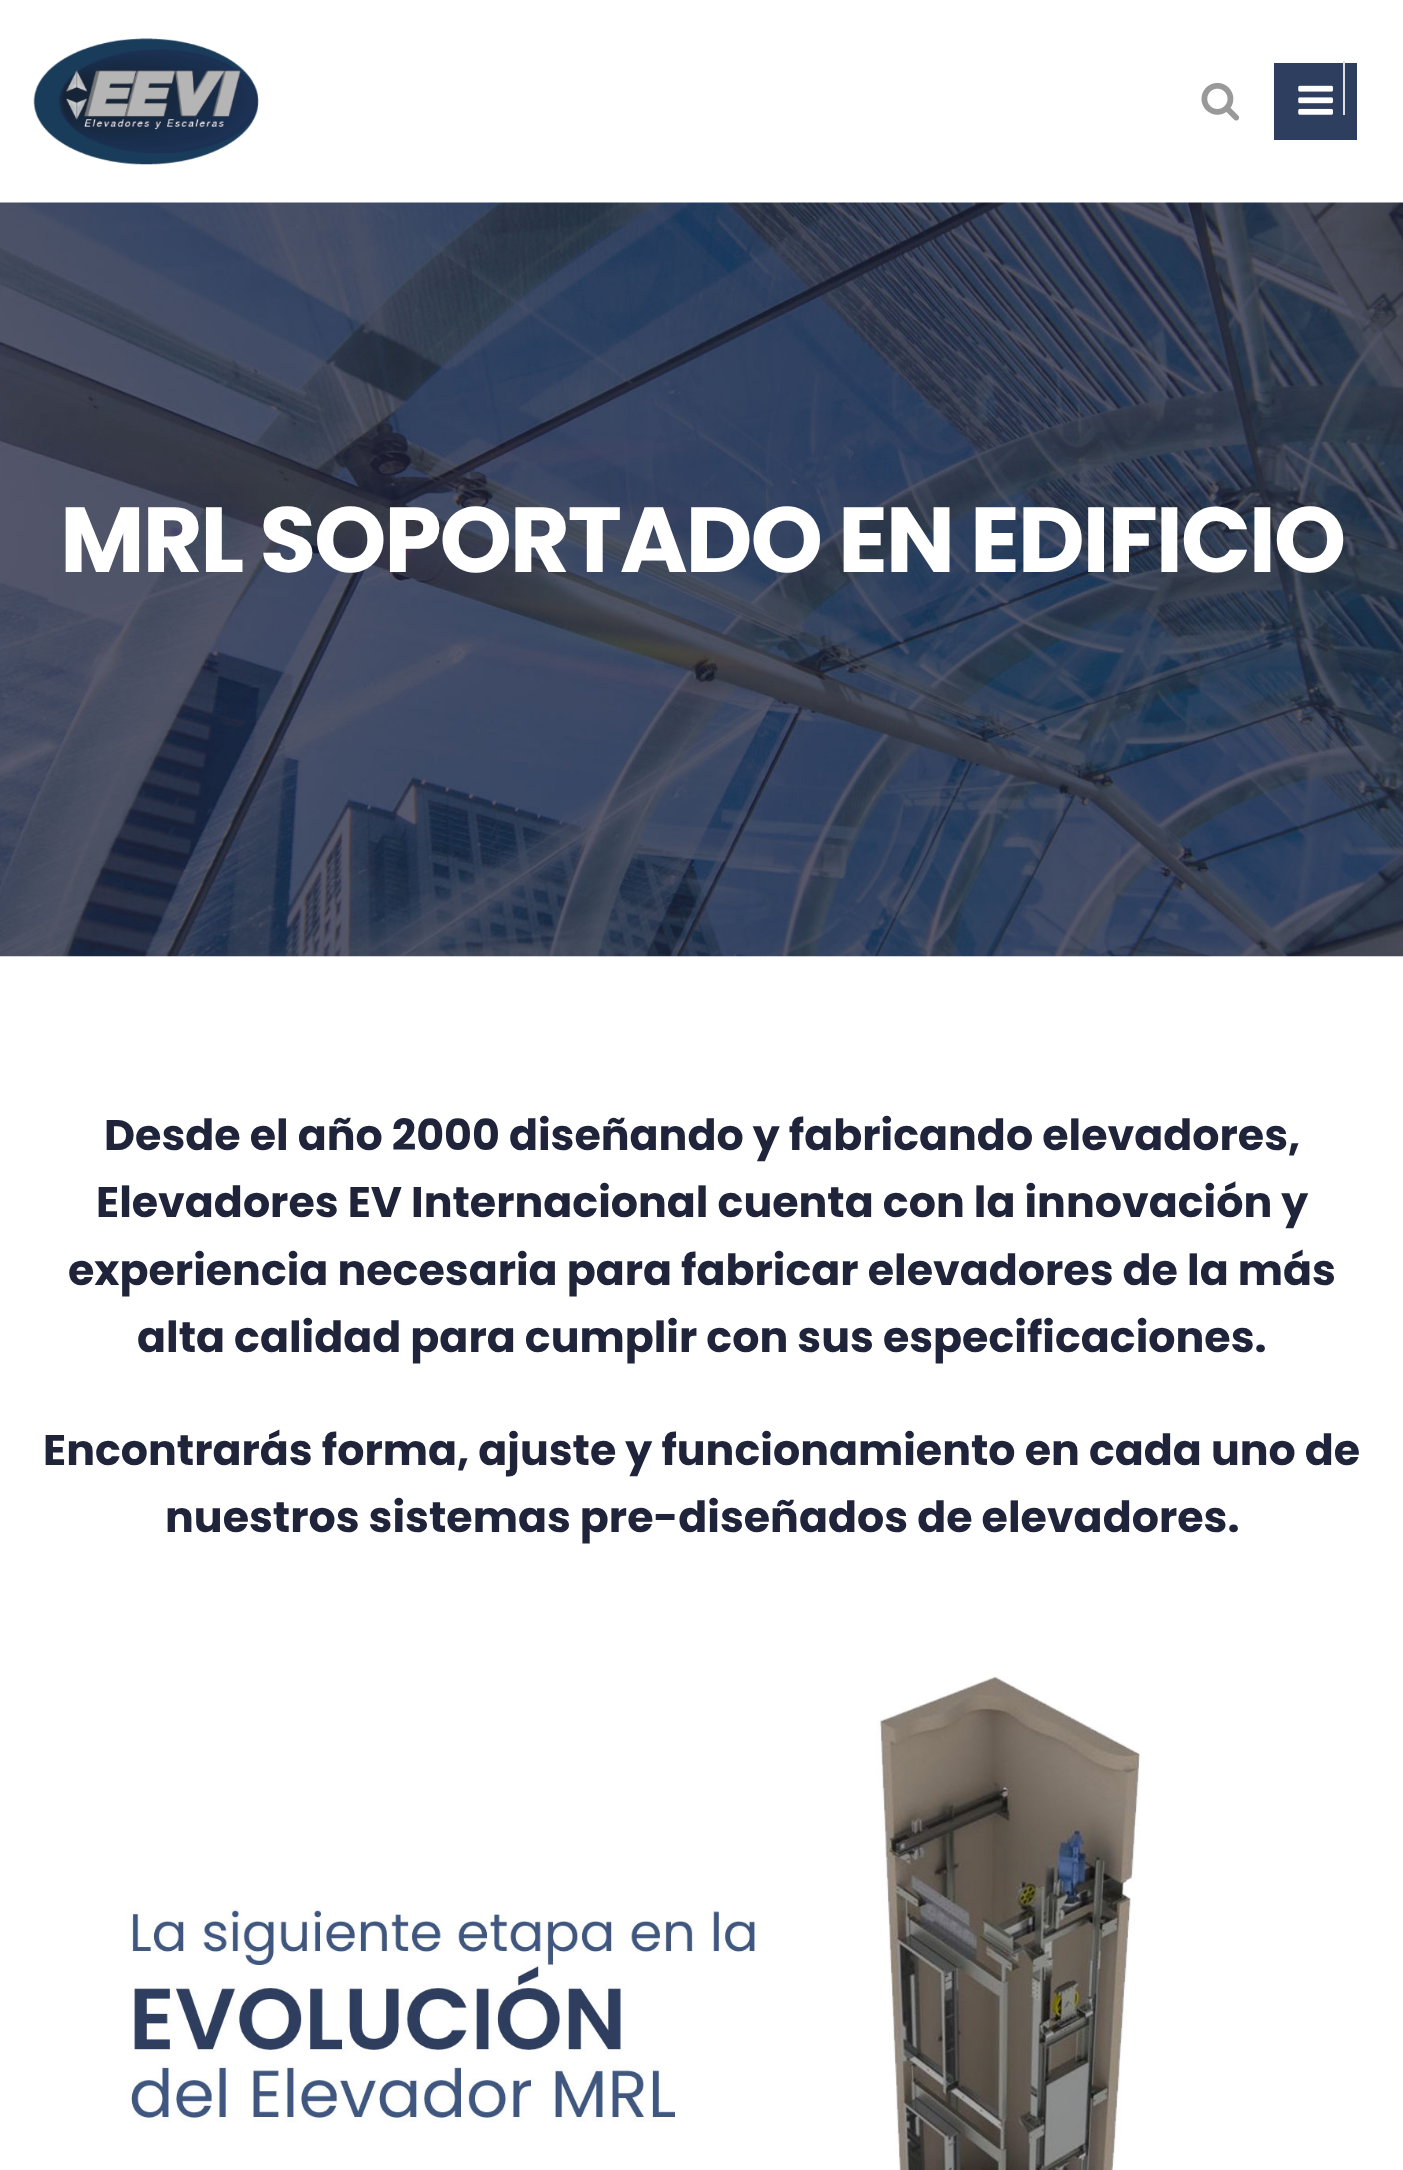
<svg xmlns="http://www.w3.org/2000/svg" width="1403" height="2170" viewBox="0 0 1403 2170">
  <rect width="100%" height="100%" fill="#ffffff"/>
  <image x="33" y="38" width="226" height="127" href="img1.png"/>
  <rect x="1274" y="63" width="83" height="77" fill="#2d3e5f"/>
  <rect x="1343" y="61" width="2" height="54" fill="#dde0e2"/>
  <image x="1201" y="82" width="39" height="39" href="img2.png"/>
  <image x="1298" y="85" width="35" height="30" href="img3.png"/>
  <image x="0" y="202" width="1403" height="755" href="img4.png"/>
  <text x="60" y="572" font-family="Poppins" font-size="92.25" font-weight="bold" letter-spacing="-2.25" fill="#ffffff">MRL SOPORTADO EN EDIFICIO</text>
  <text x="104" y="1150" font-family="Poppins" font-size="42.75" font-weight="bold" fill="#20243b">Desde el año 2000 diseñando y fabricando elevadores,</text>
  <text x="96" y="1217" font-family="Poppins" font-size="42.75" font-weight="bold" fill="#20243b">Elevadores EV Internacional cuenta con la innovación y</text>
  <text x="68" y="1285" font-family="Poppins" font-size="42.75" font-weight="bold" fill="#20243b">experiencia necesaria para fabricar elevadores de la más</text>
  <text x="137" y="1352" font-family="Poppins" font-size="42.75" font-weight="bold" fill="#20243b">alta calidad para cumplir con sus especificaciones.</text>
  <text x="43" y="1465" font-family="Poppins" font-size="42.75" font-weight="bold" fill="#20243b">Encontrarás forma, ajuste y funcionamiento en cada uno de</text>
  <text x="165" y="1532" font-family="Poppins" font-size="42.75" font-weight="bold" fill="#20243b">nuestros sistemas pre-diseñados de elevadores.</text>
  <image x="127" y="1676" width="1014" height="494" href="img5.png"/>
</svg>
